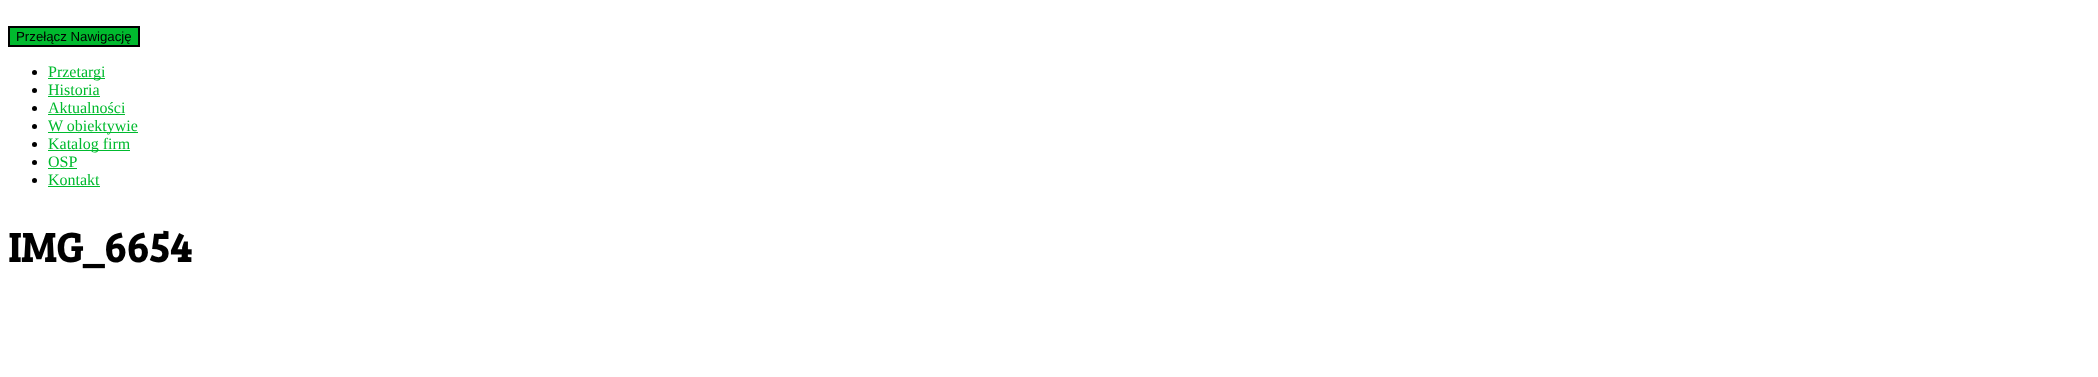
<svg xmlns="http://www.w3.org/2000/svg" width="2098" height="377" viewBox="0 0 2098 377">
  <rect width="100%" height="100%" fill="#ffffff"/>
  <rect x="9" y="27" width="130" height="19" fill="#00ba2e" stroke="#000000" stroke-width="2"/>
  <text x="16" y="41" font-family="Liberation Sans" font-size="13.25" fill="#000000">Przełącz Nawigację</text>
  <circle cx="34.5" cy="72.5" r="2.5" fill="#000000"/>
  <rect x="48" y="78" width="57" height="1" fill="#00ba2e"/>
  <text x="48" y="77" font-family="Liberation Serif" font-size="16" fill="#00ba2e">Przetargi</text>
  <circle cx="34.5" cy="90.5" r="2.5" fill="#000000"/>
  <text x="48" y="95" font-family="Liberation Serif" font-size="16" fill="#00ba2e">Historia</text>
  <rect x="48" y="96" width="52" height="1" fill="#00ba2e"/>
  <circle cx="34.5" cy="108.5" r="2.5" fill="#000000"/>
  <text x="48" y="113" font-family="Liberation Serif" font-size="16" fill="#00ba2e">Aktualności</text>
  <rect x="48" y="114" width="77" height="1" fill="#00ba2e"/>
  <circle cx="34.5" cy="126.5" r="2.5" fill="#000000"/>
  <rect x="48" y="132" width="90" height="1" fill="#00ba2e"/>
  <text x="48" y="131" font-family="Liberation Serif" font-size="16" fill="#00ba2e">W obiektywie</text>
  <circle cx="34.5" cy="144.5" r="2.5" fill="#000000"/>
  <rect x="48" y="150" width="82" height="1" fill="#00ba2e"/>
  <text x="48" y="149" font-family="Liberation Serif" font-size="16" fill="#00ba2e">Katalog firm</text>
  <circle cx="34.5" cy="162.5" r="2.5" fill="#000000"/>
  <text x="48" y="167" font-family="Liberation Serif" font-size="16" fill="#00ba2e">OSP</text>
  <rect x="48" y="168" width="29" height="1" fill="#00ba2e"/>
  <circle cx="34.5" cy="180.5" r="2.5" fill="#000000"/>
  <text x="48" y="185" font-family="Liberation Serif" font-size="16" fill="#00ba2e">Kontakt</text>
  <rect x="48" y="186" width="52" height="1" fill="#00ba2e"/>
  <text x="8" y="262" font-family="Bree Serif" font-size="42" font-weight="bold" fill="#000000">IMG_6654</text>
</svg>
